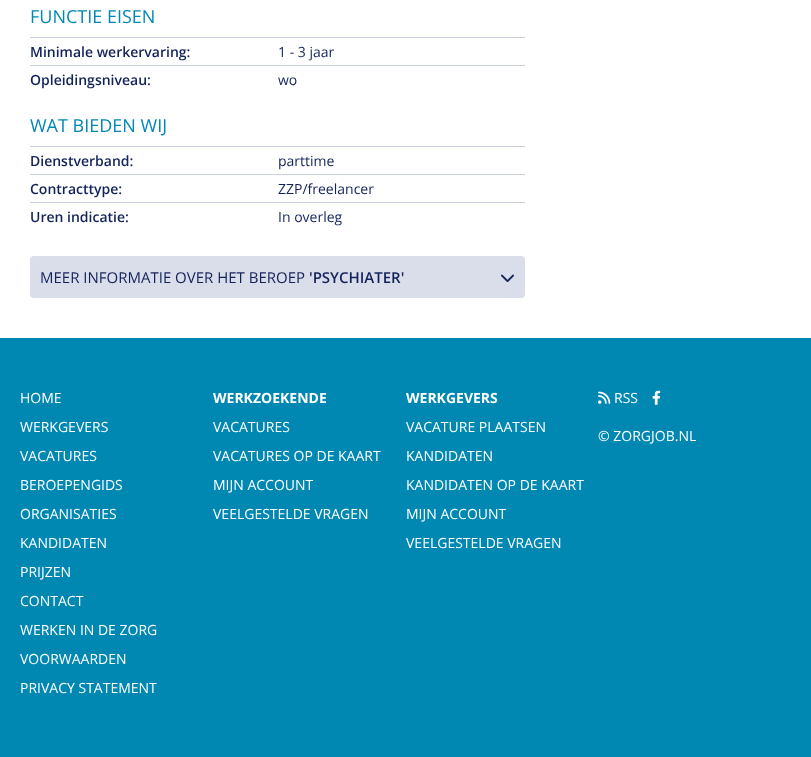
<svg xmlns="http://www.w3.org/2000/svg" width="811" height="757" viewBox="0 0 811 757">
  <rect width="100%" height="100%" fill="#ffffff"/>
  <text x="30" y="23" font-family="Open Sans" font-size="18" fill="#0088b3">FUNCTIE EISEN</text>
  <rect x="30" y="37" width="495" height="1" fill="#cbd0e1"/>
  <text x="30" y="57" font-family="Open Sans" font-size="14" font-weight="600" fill="#13225b">Minimale werkervaring:</text>
  <text x="278" y="57" font-family="Open Sans" font-size="14" fill="#13225b">1 - 3 jaar</text>
  <rect x="30" y="65" width="495" height="1" fill="#cbd0e1"/>
  <text x="30" y="85" font-family="Open Sans" font-size="14" font-weight="600" fill="#13225b">Opleidingsniveau:</text>
  <text x="278" y="85" font-family="Open Sans" font-size="14" fill="#13225b">wo</text>
  <text x="30" y="132" font-family="Open Sans" font-size="18" fill="#0088b3">WAT BIEDEN WIJ</text>
  <rect x="30" y="146" width="495" height="1" fill="#cbd0e1"/>
  <text x="30" y="166" font-family="Open Sans" font-size="14" font-weight="600" fill="#13225b">Dienstverband:</text>
  <text x="278" y="166" font-family="Open Sans" font-size="14" fill="#13225b">parttime</text>
  <rect x="30" y="174" width="495" height="1" fill="#cbd0e1"/>
  <text x="30" y="194" font-family="Open Sans" font-size="14" font-weight="600" fill="#13225b">Contracttype:</text>
  <text x="278" y="194" font-family="Open Sans" font-size="14" fill="#13225b">ZZP/freelancer</text>
  <rect x="30" y="202" width="495" height="1" fill="#cbd0e1"/>
  <text x="30" y="222" font-family="Open Sans" font-size="14" font-weight="600" fill="#13225b">Uren indicatie:</text>
  <text x="278" y="222" font-family="Open Sans" font-size="14" fill="#13225b">In overleg</text>
  <rect x="30" y="256" width="495" height="42" rx="4" fill="#dadeea"/>
  <text x="40" y="283" font-family="Open Sans" font-size="15" fill="#13225b">MEER INFORMATIE OVER HET BEROEP</text>
  <text x="309" y="283" font-family="Open Sans" font-size="15" font-weight="600" fill="#13225b">'PSYCHIATER'</text>
  <image x="501" y="274" width="13" height="8" href="img1.png"/>
  <rect x="0" y="338" width="811" height="419" fill="#0088b3"/>
  <text x="20" y="403" font-family="Open Sans" font-size="14" fill="#ffffff">HOME</text>
  <text x="20" y="432" font-family="Open Sans" font-size="14" fill="#ffffff">WERKGEVERS</text>
  <text x="20" y="461" font-family="Open Sans" font-size="14" fill="#ffffff">VACATURES</text>
  <text x="20" y="490" font-family="Open Sans" font-size="14" fill="#ffffff">BEROEPENGIDS</text>
  <text x="20" y="519" font-family="Open Sans" font-size="14" fill="#ffffff">ORGANISATIES</text>
  <text x="20" y="548" font-family="Open Sans" font-size="14" fill="#ffffff">KANDIDATEN</text>
  <text x="20" y="577" font-family="Open Sans" font-size="14" fill="#ffffff">PRIJZEN</text>
  <text x="20" y="606" font-family="Open Sans" font-size="14" fill="#ffffff">CONTACT</text>
  <text x="20" y="635" font-family="Open Sans" font-size="14" fill="#ffffff">WERKEN IN DE ZORG</text>
  <text x="20" y="664" font-family="Open Sans" font-size="14" fill="#ffffff">VOORWAARDEN</text>
  <text x="20" y="693" font-family="Open Sans" font-size="14" fill="#ffffff">PRIVACY STATEMENT</text>
  <text x="213" y="403" font-family="Open Sans" font-size="14" font-weight="bold" fill="#ffffff">WERKZOEKENDE</text>
  <text x="213" y="432" font-family="Open Sans" font-size="14" fill="#ffffff">VACATURES</text>
  <text x="213" y="461" font-family="Open Sans" font-size="14" fill="#ffffff">VACATURES OP DE KAART</text>
  <text x="213" y="490" font-family="Open Sans" font-size="14" fill="#ffffff">MIJN ACCOUNT</text>
  <text x="213" y="519" font-family="Open Sans" font-size="14" fill="#ffffff">VEELGESTELDE VRAGEN</text>
  <text x="406" y="403" font-family="Open Sans" font-size="14" font-weight="bold" fill="#ffffff">WERKGEVERS</text>
  <text x="406" y="432" font-family="Open Sans" font-size="14" fill="#ffffff">VACATURE PLAATSEN</text>
  <text x="406" y="461" font-family="Open Sans" font-size="14" fill="#ffffff">KANDIDATEN</text>
  <text x="406" y="490" font-family="Open Sans" font-size="14" fill="#ffffff">KANDIDATEN OP DE KAART</text>
  <text x="406" y="519" font-family="Open Sans" font-size="14" fill="#ffffff">MIJN ACCOUNT</text>
  <text x="406" y="548" font-family="Open Sans" font-size="14" fill="#ffffff">VEELGESTELDE VRAGEN</text>
  <image x="598" y="391" width="13" height="13" href="img2.png"/>
  <text x="614" y="403" font-family="Open Sans" font-size="14" fill="#ffffff">RSS</text>
  <image x="652" y="390" width="9" height="15" href="img3.png"/>
  <text x="598" y="441" font-family="Open Sans" font-size="14" fill="#ffffff">© ZORGJOB.NL</text>
</svg>
